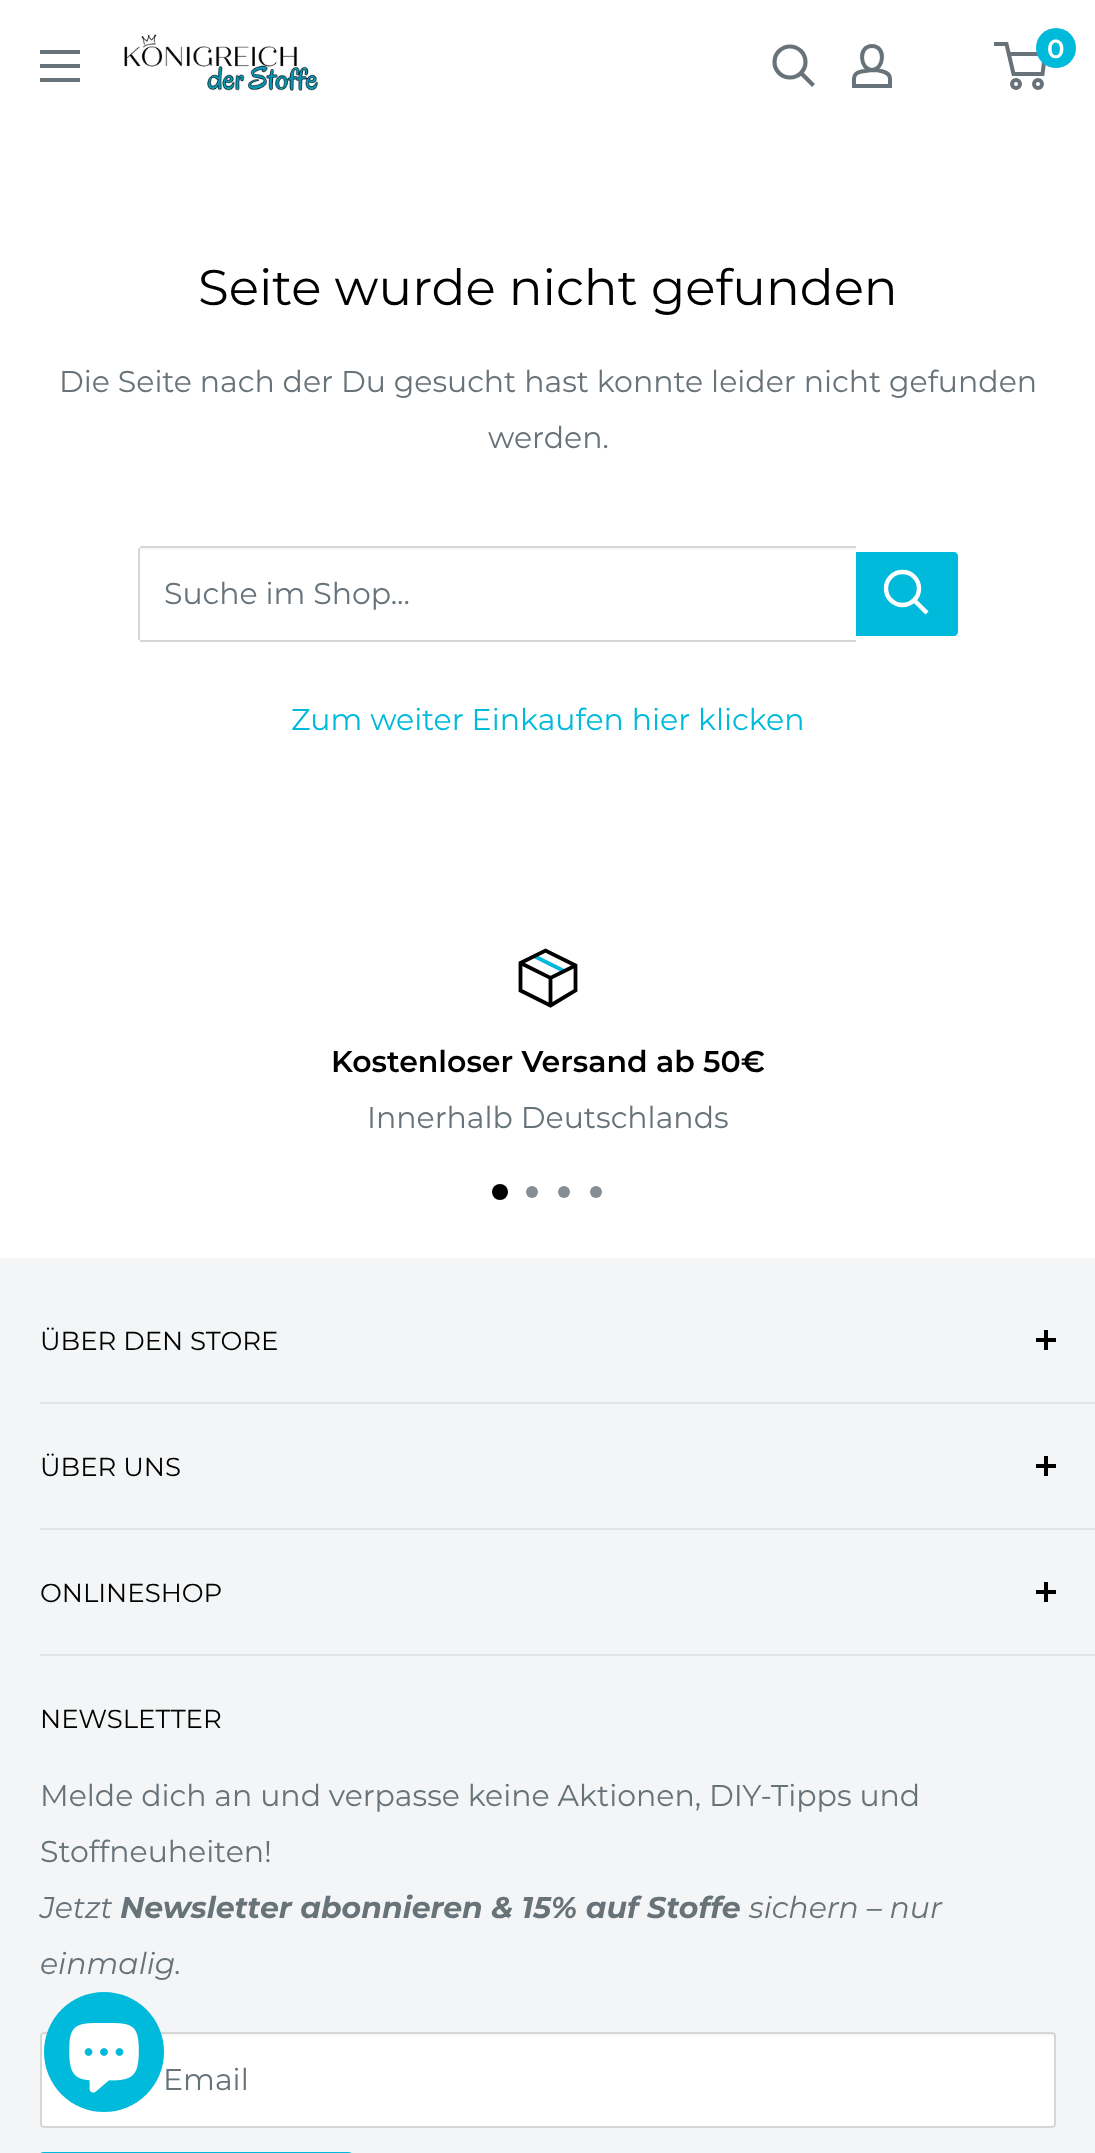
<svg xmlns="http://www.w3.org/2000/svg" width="1095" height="2153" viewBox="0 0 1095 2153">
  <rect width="100%" height="100%" fill="#ffffff"/>
  <path d="M40 78H80V82H40ZM40 50H80V54H40ZM40 64H80V68H40Z" fill="#677279" fill-rule="evenodd"/>
  <image x="124" y="34" width="194" height="57" href="img1.png"/>
  <path d="M812 84L801.5 73.5" fill="none" stroke="#677279" stroke-width="4.2" stroke-linecap="square"/>
  <circle cx="790" cy="62" r="15.5" fill="none" stroke="#677279" stroke-width="4.2"/>
  <path d="M872 70C876 70 879.5 70.5 883 71.5C891.5 74 890 78.5 890 86H854C854 78 852.5 73.5 861.5 71.5ZM872 70C860 70 857.5 46 872 46C886.5 46 884 70 872 70Z" fill="none" stroke="#677279" stroke-width="4"/>
  <circle cx="1016" cy="84" r="4" fill="none" stroke="#677279" stroke-width="4"/>
  <circle cx="1038" cy="84" r="4" fill="none" stroke="#677279" stroke-width="4"/>
  <path d="M1008.5 54H1045L1042.5 74H1013.5L1006.5 44H994" fill="none" stroke="#677279" stroke-width="4"/>
  <circle cx="1056" cy="48" r="20" fill="#00badb"/>
  <text x="1047" y="58" font-family="Montserrat" font-size="26" font-weight="600" fill="#ffffff">0</text>
  <text x="198" y="305" font-family="Montserrat" font-size="50" fill="#000000">Seite wurde nicht gefunden</text>
  <text x="59" y="392" font-family="Montserrat" font-size="30" fill="#677279">Die Seite nach der Du gesucht hast konnte leider nicht gefunden</text>
  <text x="488" y="448" font-family="Montserrat" font-size="30" fill="#677279">werden.</text>
  <path d="M142 550H856V548H142L140 549V552C140 551 141 550 142 550Z" fill="#f8f8f8"/>
  <rect x="140" y="546" width="716" height="2" fill="#d4d6d8"/>
  <rect x="140" y="640" width="716" height="2" fill="#d4d6d8"/>
  <rect x="138" y="548" width="2" height="92" fill="#d4d6d8"/>
  <text x="164" y="604" font-family="Montserrat" font-size="30" fill="#677279">Suche im Shop...</text>
  <path d="M856 552H954C956 552 958 554 958 556V632C958 634 956 636 954 636H856Z" fill="#00badb"/>
  <path d="M925.5 611.5L914.5 600.5" fill="none" stroke="#ffffff" stroke-width="4.4" stroke-linecap="square"/>
  <circle cx="902.5" cy="588.5" r="16.5" fill="none" stroke="#ffffff" stroke-width="4.4"/>
  <text x="291" y="730" font-family="Montserrat" font-size="30" fill="#00badb">Zum weiter Einkaufen hier klicken</text>
  <path d="M534 956L564 971" fill="none" stroke="#00badb" stroke-width="3.8"/>
  <path d="M575.5 965.5L550.5 978L520.5 963M550.5 978V1005.5" fill="none" stroke="#000000" stroke-width="3.8"/>
  <path d="M575.5 965.5V990.5L550.5 1005.5L520.5 990.5V963L545.5 950.5Z" fill="none" stroke="#000000" stroke-width="3.8" stroke-linecap="square"/>
  <text x="331" y="1072" font-family="Montserrat" font-size="30" font-weight="600" fill="#000000">Kostenloser Versand ab 50€</text>
  <text x="367" y="1128" font-family="Montserrat" font-size="30" fill="#677279">Innerhalb Deutschlands</text>
  <circle cx="500" cy="1192" r="8" fill="#000000"/>
  <circle cx="532" cy="1192" r="6" fill="#858e94"/>
  <circle cx="564" cy="1192" r="6" fill="#858e94"/>
  <circle cx="596" cy="1192" r="6" fill="#858e94"/>
  <rect x="0" y="1258" width="1095" height="895" fill="#f3f5f6"/>
  <rect x="40" y="1402" width="1055" height="2" fill="#e1e3e4"/>
  <text x="40" y="1350" font-family="Montserrat" font-size="26" fill="#000000">ÜBER DEN STORE</text>
  <rect x="1044" y="1330" width="4" height="20" fill="#000000"/>
  <rect x="1036" y="1338" width="20" height="4" fill="#000000"/>
  <rect x="40" y="1528" width="1055" height="2" fill="#e1e3e4"/>
  <text x="40" y="1476" font-family="Montserrat" font-size="26" fill="#000000">ÜBER UNS</text>
  <rect x="1044" y="1456" width="4" height="20" fill="#000000"/>
  <rect x="1036" y="1464" width="20" height="4" fill="#000000"/>
  <rect x="40" y="1654" width="1055" height="2" fill="#e1e3e4"/>
  <text x="40" y="1602" font-family="Montserrat" font-size="26" fill="#000000">ONLINESHOP</text>
  <rect x="1044" y="1582" width="4" height="20" fill="#000000"/>
  <rect x="1036" y="1590" width="20" height="4" fill="#000000"/>
  <text x="40" y="1728" font-family="Montserrat" font-size="26" fill="#000000">NEWSLETTER</text>
  <text x="40" y="1806" font-family="Montserrat" font-size="30" fill="#677279">Melde dich an und verpasse keine Aktionen, DIY-Tipps und</text>
  <text x="40" y="1862" font-family="Montserrat" font-size="30" fill="#677279">Stoffneuheiten!</text>
  <text x="40" y="1918" font-family="Montserrat" font-size="30" font-style="italic" fill="#677279">Jetzt</text>
  <text x="120" y="1918" font-family="Montserrat" font-size="30" font-weight="bold" font-style="italic" fill="#677279">Newsletter abonnieren &amp; 15% auf Stoffe</text>
  <text x="749" y="1918" font-family="Montserrat" font-size="30" font-style="italic" fill="#677279">sichern – nur</text>
  <text x="40" y="1974" font-family="Montserrat" font-size="30" font-style="italic" fill="#677279">einmalig.</text>
  <rect x="40" y="2032" width="1016" height="96" rx="4" fill="#ffffff"/>
  <path d="M44 2036H1052C1053 2036 1054 2037 1054 2038C1054 2036 1054 2034 1052 2034H44L42 2035V2038C42 2037 43 2036 44 2036Z" fill="#f8f8f8"/>
  <rect x="41" y="2033" width="1014" height="94" rx="3" fill="none" stroke="#d4d6d8" stroke-width="2"/>
  <text x="163" y="2090" font-family="Montserrat" font-size="30" fill="#677279">Email</text>
  <rect x="40" y="2152" width="312" height="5" rx="4" fill="#00badb"/>
  <circle cx="104" cy="2052" r="60" fill="#00badb"/>
  <image x="69" y="2023" width="70" height="70" href="img2.png"/>
</svg>
